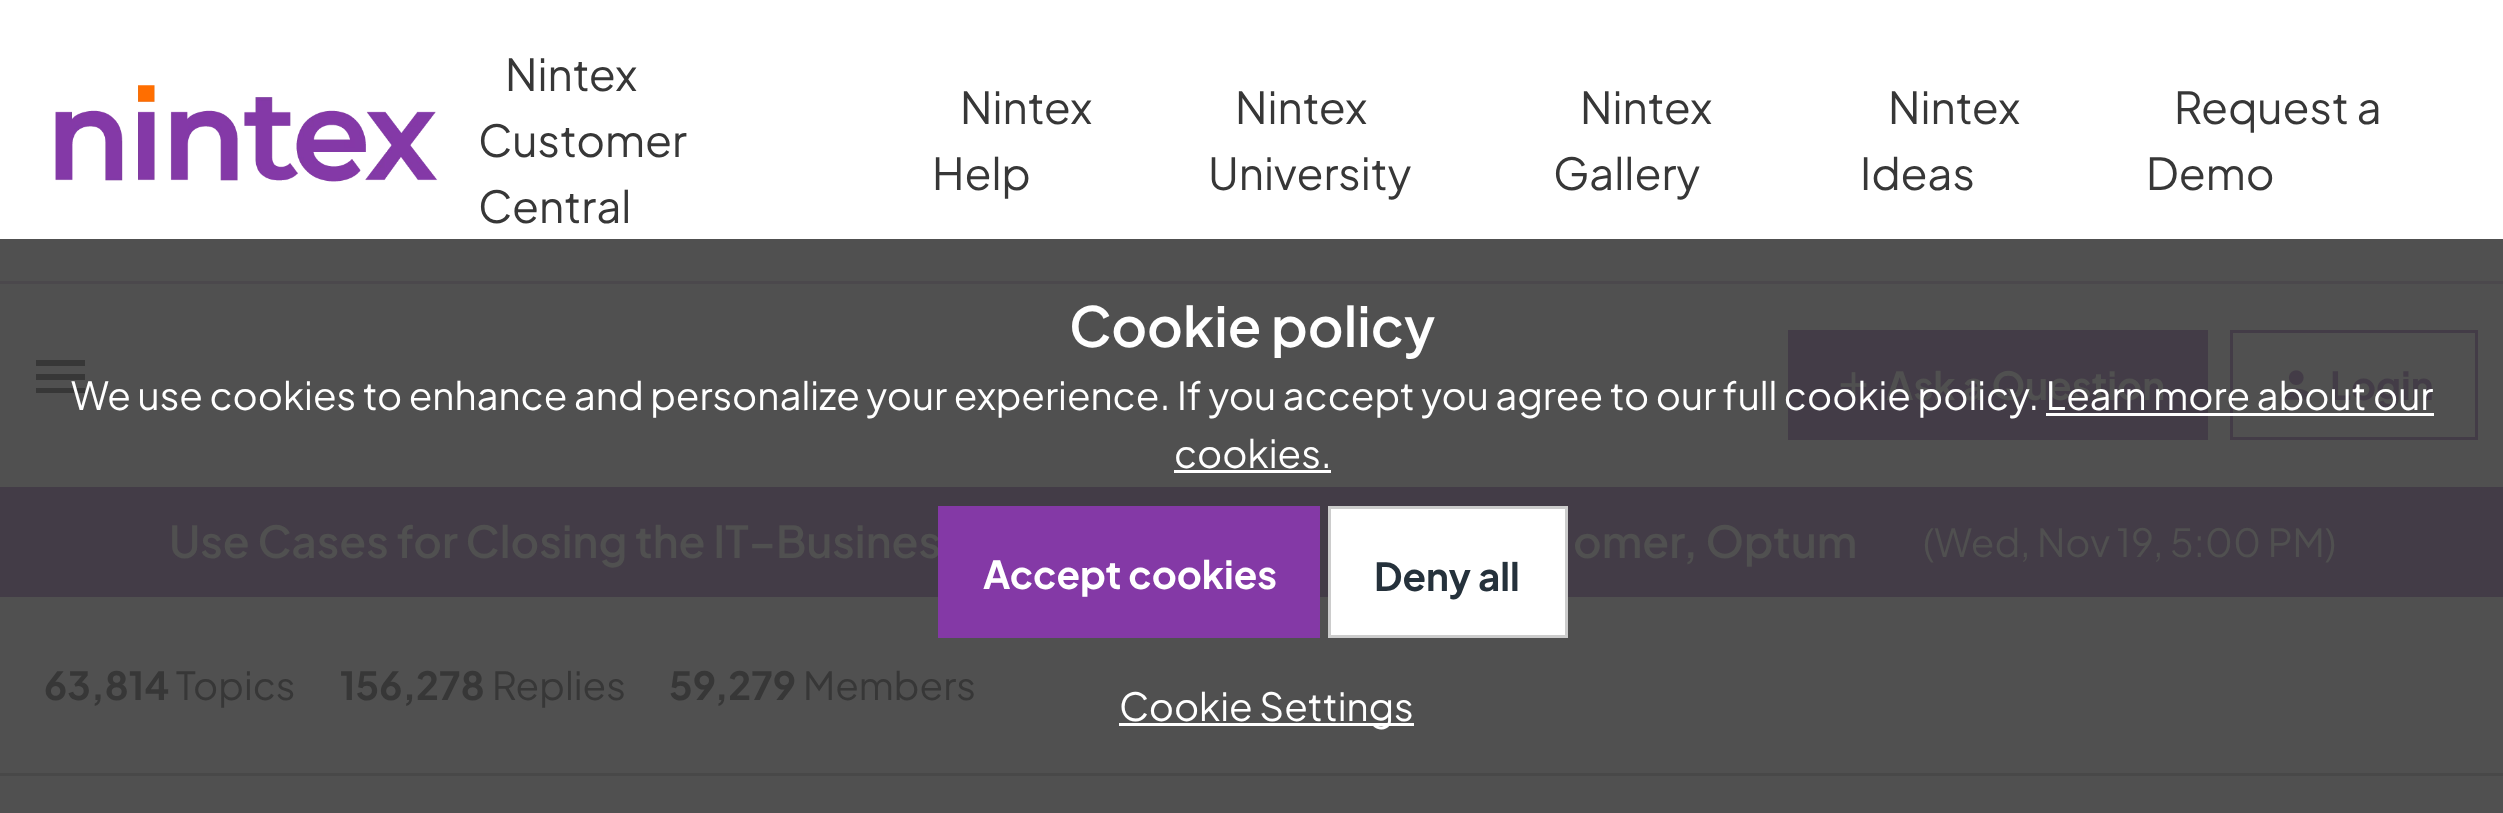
<svg xmlns="http://www.w3.org/2000/svg" width="2503" height="813" viewBox="0 0 2503 813">
  <rect width="100%" height="100%" fill="#ffffff"/>
  <rect x="0" y="239" width="2503" height="574" fill="#505050"/>
  <image x="55" y="85" width="383" height="97" href="img1.png"/>
  <text x="505" y="91" font-family="Plus Jakarta Sans" font-size="44" fill="#373737">Nintex</text>
  <text x="478" y="157" font-family="Plus Jakarta Sans" font-size="44" fill="#373737">Customer</text>
  <text x="478" y="223" font-family="Plus Jakarta Sans" font-size="44" fill="#373737">Central</text>
  <text x="960" y="124" font-family="Plus Jakarta Sans" font-size="44" fill="#373737">Nintex</text>
  <text x="932" y="190" font-family="Plus Jakarta Sans" font-size="44" fill="#373737">Help</text>
  <text x="1235" y="124" font-family="Plus Jakarta Sans" font-size="44" fill="#373737">Nintex</text>
  <text x="1208" y="190" font-family="Plus Jakarta Sans" font-size="44" fill="#373737">University</text>
  <text x="1580" y="124" font-family="Plus Jakarta Sans" font-size="44" fill="#373737">Nintex</text>
  <text x="1553" y="190" font-family="Plus Jakarta Sans" font-size="44" fill="#373737">Gallery</text>
  <text x="1888" y="124" font-family="Plus Jakarta Sans" font-size="44" fill="#373737">Nintex</text>
  <text x="1860" y="190" font-family="Plus Jakarta Sans" font-size="44" fill="#373737">Ideas</text>
  <text x="2174" y="124" font-family="Plus Jakarta Sans" font-size="44" fill="#373737">Request a</text>
  <text x="2146" y="190" font-family="Plus Jakarta Sans" font-size="44" fill="#373737">Demo</text>
  <text x="1069" y="347" font-family="Plus Jakarta Sans" font-size="55" font-weight="600" fill="#ffffff">Cookie policy</text>
  <path d="M36 393H85V388H36ZM36 380H85V374H36ZM36 360V366H85V360Z" fill="#373737"/>
  <rect x="1788" y="330" width="420" height="110" fill="#433c47"/>
  <image x="1840" y="372" width="27" height="26" href="img2.png"/>
  <text x="1886" y="400" font-family="Plus Jakarta Sans" font-size="38.5" font-weight="bold" fill="#505050">Ask a Question</text>
  <rect x="2231.5" y="331.5" width="245" height="107" fill="none" stroke="#433c47" stroke-width="3"/>
  <image x="2281" y="370" width="30" height="30" href="img3.png"/>
  <text x="2330" y="400" font-family="Plus Jakarta Sans" font-size="38.5" font-weight="bold" fill="#433c47">Login</text>
  <text x="71" y="410" font-family="Plus Jakarta Sans" font-size="38.5" fill="#ffffff">We use cookies to enhance and personalize your experience. If you accept you agree to our full cookie policy. Learn more about our</text>
  <rect x="2046" y="413" width="388" height="3" fill="#ffffff"/>
  <text x="1174" y="468" font-family="Plus Jakarta Sans" font-size="38.5" fill="#ffffff">cookies.</text>
  <rect x="1174" y="470" width="157" height="3" fill="#ffffff"/>
  <rect x="0" y="487" width="2503" height="110" fill="#433c47"/>
  <text x="169" y="558" font-family="Plus Jakarta Sans" font-size="44" font-weight="600" fill="#505050">Use Cases for Closing the IT–Busines</text>
  <rect x="938" y="506" width="382" height="132" fill="#8439a6"/>
  <text x="983" y="589" font-family="Plus Jakarta Sans" font-size="38.5" font-weight="bold" fill="#ffffff">Accept cookies</text>
  <rect x="1329.5" y="507.5" width="237" height="129" fill="#ffffff" stroke="#cccccc" stroke-width="3"/>
  <text x="1374" y="591" font-family="Plus Jakarta Sans" font-size="38.5" font-weight="bold" fill="#25313b">Deny all</text>
  <rect x="1119" y="723" width="295" height="3" fill="#ffffff"/>
  <text x="1119" y="721" font-family="Plus Jakarta Sans" font-size="38.5" fill="#ffffff">Cookie Settings</text>
  <rect x="0" y="281" width="2503" height="3" fill="#4b484c"/>
  <text x="1573" y="558" font-family="Plus Jakarta Sans" font-size="44" font-weight="600" fill="#505050">omer, Optum</text>
  <text x="1923" y="557" font-family="Plus Jakarta Sans" font-size="38.5" fill="#505050">(Wed, Nov 19, 5:00 PM)</text>
  <rect x="0" y="773" width="2503" height="3" fill="#484848"/>
  <text x="44" y="700" font-family="Plus Jakarta Sans" font-size="38.5" font-weight="bold" fill="#373737">63,814</text>
  <text x="176" y="700" font-family="Plus Jakarta Sans" font-size="38.5" fill="#373737">Topics</text>
  <text x="340" y="700" font-family="Plus Jakarta Sans" font-size="38.5" font-weight="bold" fill="#373737">156,278</text>
  <text x="492" y="700" font-family="Plus Jakarta Sans" font-size="38.5" fill="#373737">Replies</text>
  <text x="669" y="700" font-family="Plus Jakarta Sans" font-size="38.5" font-weight="bold" fill="#373737">59,279</text>
  <text x="803" y="700" font-family="Plus Jakarta Sans" font-size="38.5" fill="#373737">Members</text>
</svg>
